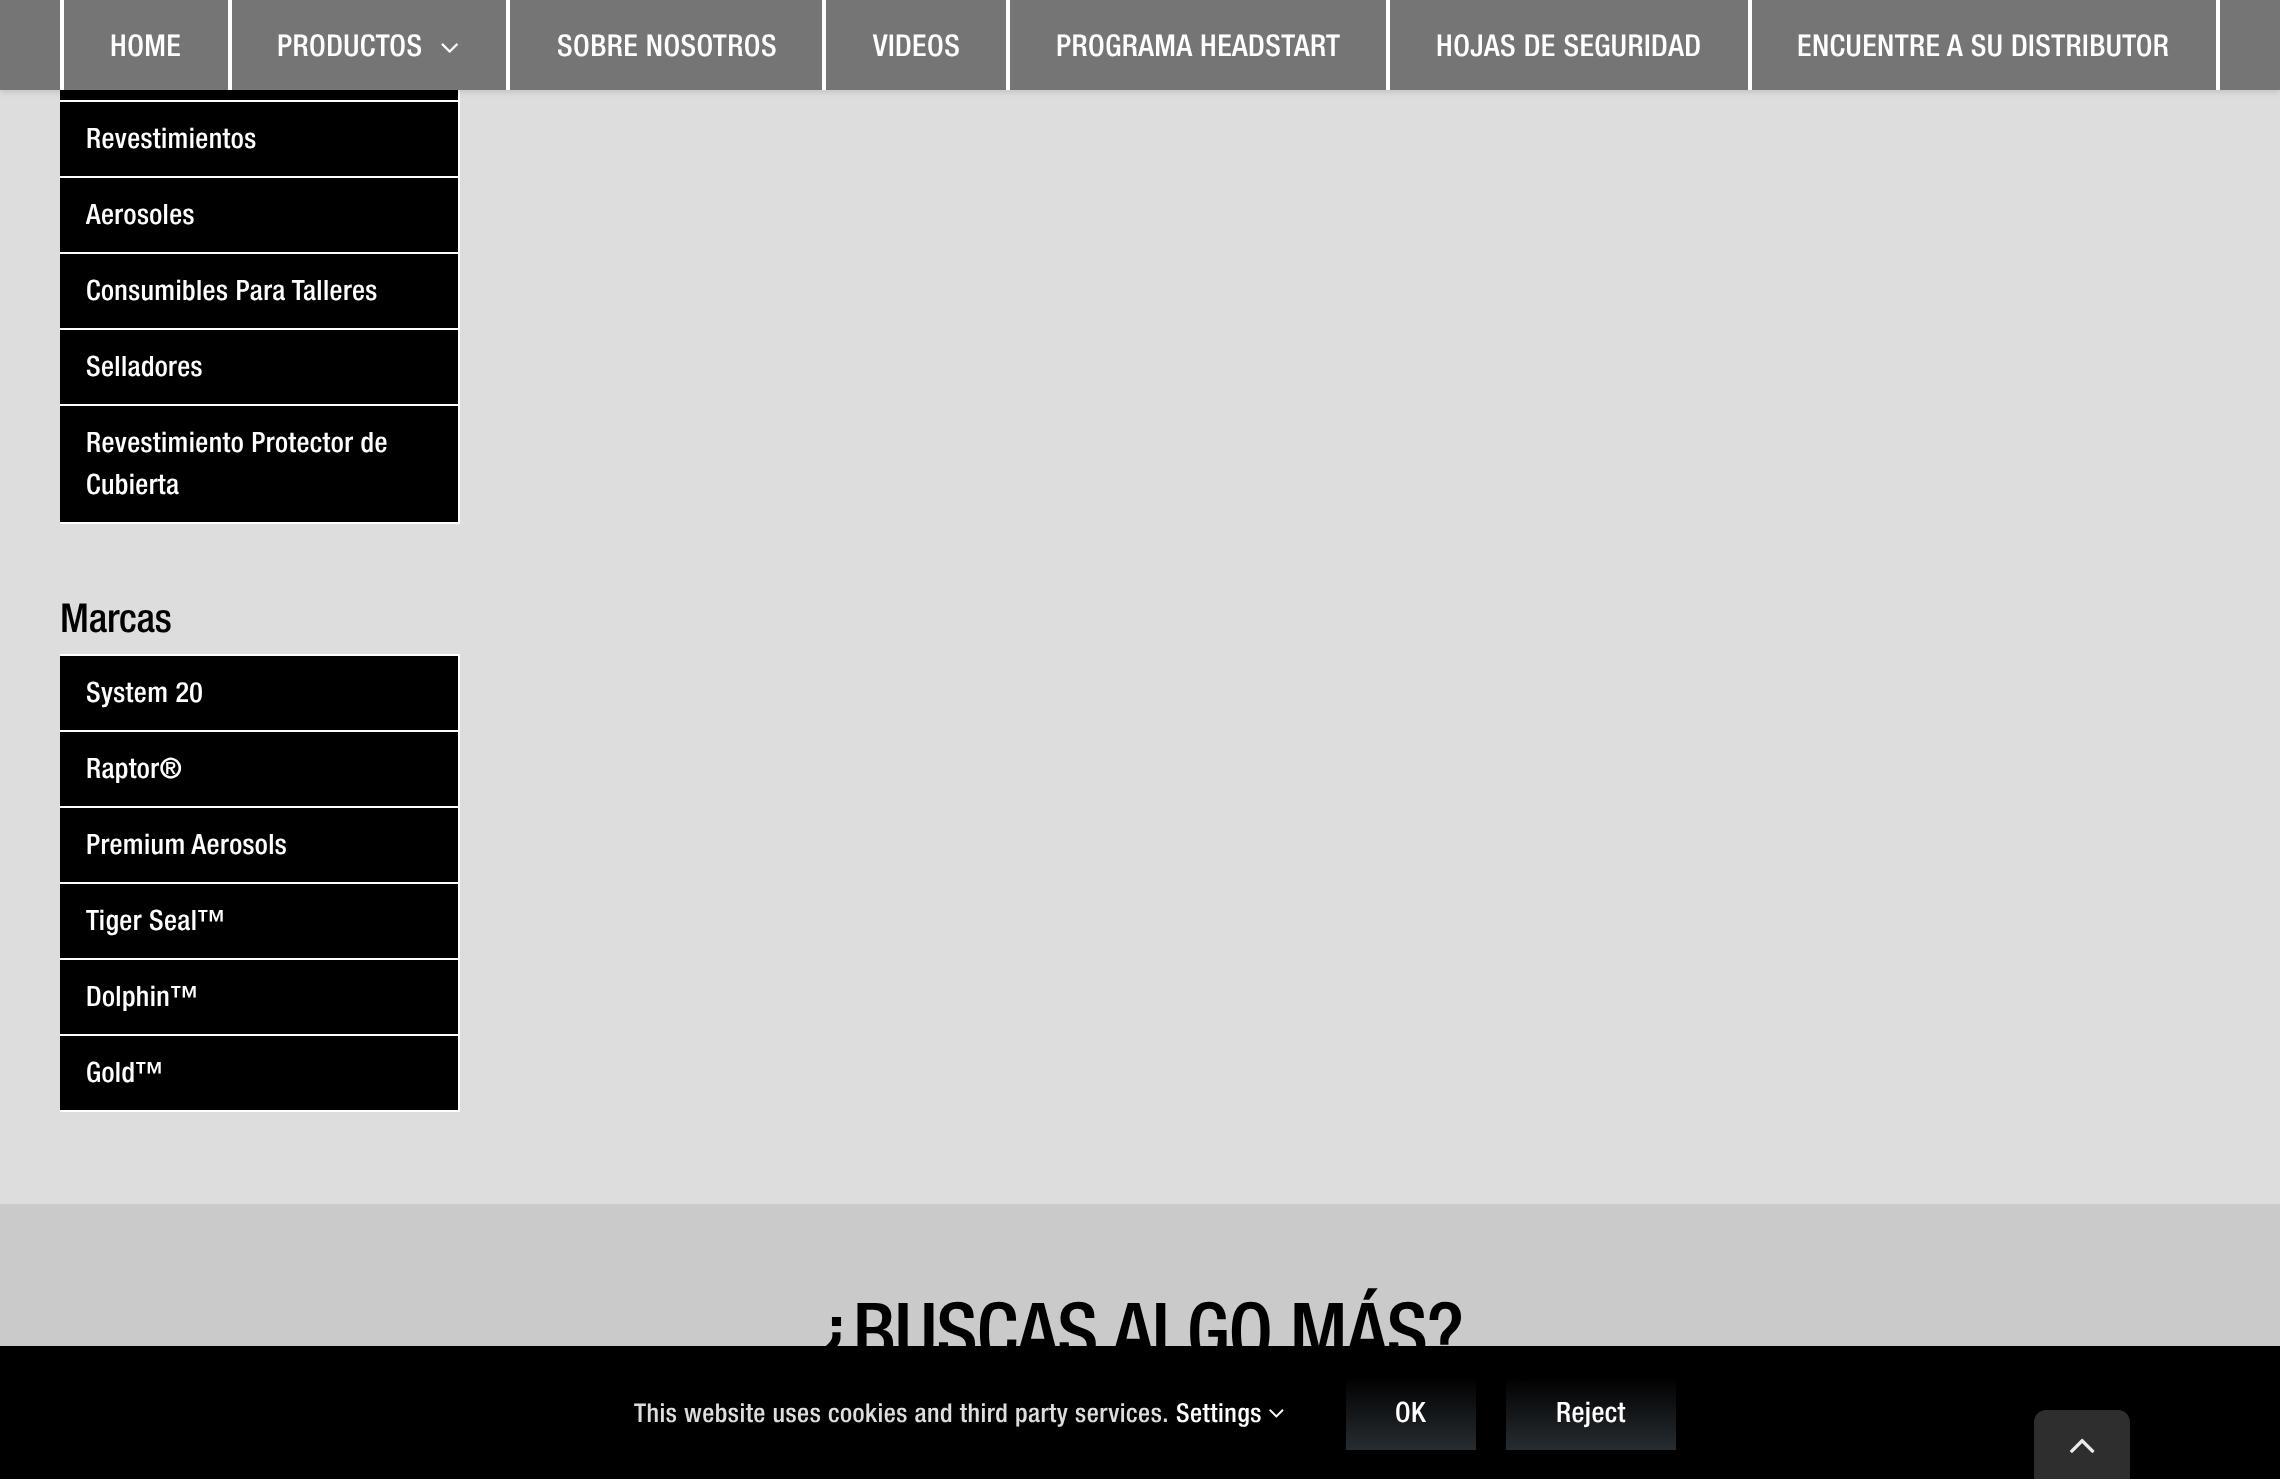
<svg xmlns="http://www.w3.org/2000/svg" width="2280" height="1479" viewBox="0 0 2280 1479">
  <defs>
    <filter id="blur1" x="-50%" y="-200%" width="200%" height="500%"><feGaussianBlur stdDeviation="3"/></filter>
    <linearGradient id="g1" gradientUnits="userSpaceOnUse" x1="1411" y1="1376" x2="1411" y2="1450"><stop offset="0" stop-color="#000000"/><stop offset="1" stop-color="#272d32"/></linearGradient>
    <linearGradient id="g2" gradientUnits="userSpaceOnUse" x1="1591" y1="1376" x2="1591" y2="1450"><stop offset="0" stop-color="#000000"/><stop offset="1" stop-color="#272d32"/></linearGradient>
  </defs>
  <rect width="100%" height="100%" fill="#dddddd"/>
  <rect x="60" y="90" width="398" height="432" fill="#000000"/>
  <rect x="458" y="90" width="2" height="434" fill="#ffffff"/>
  <rect x="60" y="100" width="398" height="2" fill="#ffffff"/>
  <rect x="0" y="2" width="2280" height="90" fill="#000000" fill-opacity="0.12" filter="url(#blur1)"/>
  <rect x="0" y="0" width="2280" height="90" fill="#757575"/>
  <rect x="60" y="0" width="4" height="90" fill="#ffffff"/>
  <text x="110" y="56" font-family="Helvetica Neue" font-size="30" font-weight="500" letter-spacing="0.45" fill="#ffffff">HOME</text>
  <rect x="228" y="0" width="4" height="90" fill="#ffffff"/>
  <text x="277" y="56" font-family="Helvetica Neue" font-size="30" font-weight="500" letter-spacing="0.45" fill="#ffffff">PRODUCTOS</text>
  <image x="441" y="43" width="17" height="10" href="img1.png"/>
  <rect x="506" y="0" width="4" height="90" fill="#ffffff"/>
  <text x="557" y="56" font-family="Helvetica Neue" font-size="30" font-weight="500" letter-spacing="0.45" fill="#ffffff">SOBRE NOSOTROS</text>
  <rect x="822" y="0" width="4" height="90" fill="#ffffff"/>
  <text x="873" y="56" font-family="Helvetica Neue" font-size="30" font-weight="500" letter-spacing="0.45" fill="#ffffff">VIDEOS</text>
  <rect x="1006" y="0" width="4" height="90" fill="#ffffff"/>
  <text x="1056" y="56" font-family="Helvetica Neue" font-size="30" font-weight="500" letter-spacing="0.45" fill="#ffffff">PROGRAMA HEADSTART</text>
  <rect x="1386" y="0" width="4" height="90" fill="#ffffff"/>
  <text x="1436" y="56" font-family="Helvetica Neue" font-size="30" font-weight="500" letter-spacing="0.45" fill="#ffffff">HOJAS DE SEGURIDAD</text>
  <rect x="2216" y="0" width="4" height="90" fill="#ffffff"/>
  <rect x="1748" y="0" width="4" height="90" fill="#ffffff"/>
  <text x="1797" y="56" font-family="Helvetica Neue" font-size="30" font-weight="500" letter-spacing="0.45" fill="#ffffff">ENCUENTRE A SU DISTRIBUTOR</text>
  <rect x="60" y="176" width="398" height="2" fill="#ffffff"/>
  <text x="86" y="148" font-family="Helvetica Neue" font-size="28" font-weight="500" letter-spacing="0.4" fill="#ffffff">Revestimientos</text>
  <rect x="60" y="252" width="398" height="2" fill="#ffffff"/>
  <text x="86" y="224" font-family="Helvetica Neue" font-size="28" font-weight="500" letter-spacing="0.4" fill="#ffffff">Aerosoles</text>
  <rect x="60" y="328" width="398" height="2" fill="#ffffff"/>
  <text x="86" y="300" font-family="Helvetica Neue" font-size="28" font-weight="500" letter-spacing="0.4" fill="#ffffff">Consumibles Para Talleres</text>
  <rect x="60" y="404" width="398" height="2" fill="#ffffff"/>
  <text x="86" y="376" font-family="Helvetica Neue" font-size="28" font-weight="500" letter-spacing="0.4" fill="#ffffff">Selladores</text>
  <rect x="60" y="522" width="398" height="2" fill="#ffffff"/>
  <text x="86" y="452" font-family="Helvetica Neue" font-size="28" font-weight="500" letter-spacing="0.4" fill="#ffffff">Revestimiento Protector de</text>
  <text x="86" y="494" font-family="Helvetica Neue" font-size="28" font-weight="500" letter-spacing="0.4" fill="#ffffff">Cubierta</text>
  <text x="60" y="632" font-family="Helvetica Neue" font-size="40" font-weight="500" letter-spacing="-0.25" fill="#000000">Marcas</text>
  <rect x="60" y="656" width="398" height="454" fill="#000000"/>
  <rect x="60" y="654" width="400" height="2" fill="#ffffff"/>
  <rect x="458" y="654" width="2" height="458" fill="#ffffff"/>
  <rect x="60" y="730" width="398" height="2" fill="#ffffff"/>
  <text x="86" y="702" font-family="Helvetica Neue" font-size="28" font-weight="500" letter-spacing="0.4" fill="#ffffff">System 20</text>
  <rect x="60" y="806" width="398" height="2" fill="#ffffff"/>
  <text x="86" y="778" font-family="Helvetica Neue" font-size="28" font-weight="500" letter-spacing="0.4" fill="#ffffff">Raptor®</text>
  <rect x="60" y="882" width="398" height="2" fill="#ffffff"/>
  <text x="86" y="854" font-family="Helvetica Neue" font-size="28" font-weight="500" letter-spacing="0.4" fill="#ffffff">Premium Aerosols</text>
  <rect x="60" y="958" width="398" height="2" fill="#ffffff"/>
  <text x="86" y="930" font-family="Helvetica Neue" font-size="28" font-weight="500" letter-spacing="0.4" fill="#ffffff">Tiger Seal™</text>
  <rect x="60" y="1034" width="398" height="2" fill="#ffffff"/>
  <text x="86" y="1006" font-family="Helvetica Neue" font-size="28" font-weight="500" letter-spacing="0.4" fill="#ffffff">Dolphin™</text>
  <rect x="60" y="1110" width="398" height="2" fill="#ffffff"/>
  <text x="86" y="1082" font-family="Helvetica Neue" font-size="28" font-weight="500" letter-spacing="0.4" fill="#ffffff">Gold™</text>
  <rect x="0" y="1204" width="2280" height="142" fill="#cacaca"/>
  <text x="817" y="1360" font-family="Helvetica Neue" font-size="80" font-weight="500" letter-spacing="-1.25" fill="#000000">¿BUSCAS ALGO MÁS?</text>
  <rect x="0" y="1346" width="2280" height="133" fill="#000000"/>
  <text x="634" y="1422" font-family="Helvetica Neue" font-size="26" font-weight="500" letter-spacing="0.48" fill="#dddddd">This website uses cookies and third party services.</text>
  <text x="1176" y="1422" font-family="Helvetica Neue" font-size="26" font-weight="500" letter-spacing="0.48" fill="#ffffff">Settings</text>
  <image x="1269" y="1409" width="15" height="9" href="img2.png"/>
  <rect x="1346" y="1380" width="130" height="70" fill="url(#g1)"/>
  <text x="1395" y="1422" font-family="Helvetica Neue" font-size="28" font-weight="500" letter-spacing="0.4" fill="#ffffff">OK</text>
  <rect x="1506" y="1380" width="170" height="70" fill="url(#g2)"/>
  <text x="1556" y="1422" font-family="Helvetica Neue" font-size="28" font-weight="500" letter-spacing="0.4" fill="#ffffff">Reject</text>
  <path d="M2046 1410H2118C2124.5 1410 2130 1415.5 2130 1422V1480H2034V1422C2034 1415.5 2039.5 1410 2046 1410Z" fill="#2e2e2e"/>
  <image x="2070" y="1438" width="25" height="15" href="img3.png"/>
</svg>
